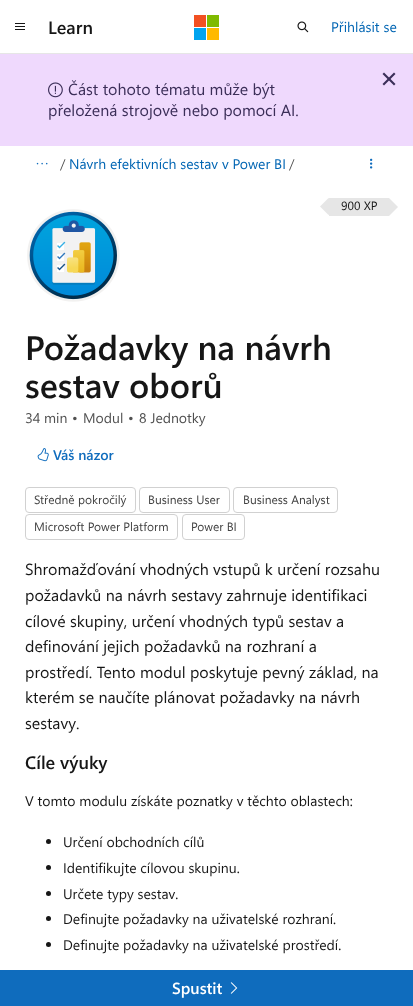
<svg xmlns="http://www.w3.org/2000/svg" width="413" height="1006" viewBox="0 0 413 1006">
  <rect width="100%" height="100%" fill="#ffffff"/>
  <rect x="0" y="53" width="413" height="1" fill="#e6e6e6"/>
  <image x="15" y="23" width="10" height="7" href="img1.png"/>
  <text x="48" y="34" font-family="Segoe UI" font-size="18" font-weight="600" fill="#161616">Learn</text>
  <rect x="194" y="15" width="12" height="12" fill="#f25022"/>
  <rect x="207" y="15" width="12" height="12" fill="#7fba00"/>
  <rect x="194" y="28" width="12" height="12" fill="#00a4ef"/>
  <rect x="207" y="28" width="12" height="12" fill="#ffb900"/>
  <image x="297" y="21" width="12" height="12" href="img2.png"/>
  <text x="331" y="32" font-family="Segoe UI" font-size="14" fill="#0065b3">Přihlásit se</text>
  <rect x="0" y="54" width="413" height="92" fill="#efd9fd"/>
  <image x="48" y="82" width="15" height="16" href="img3.png"/>
  <text x="68" y="95" font-family="Segoe UI" font-size="16" fill="#3b2e58">Část tohoto tématu může být</text>
  <text x="48" y="116" font-family="Segoe UI" font-size="16" fill="#3b2e58">přeložená strojově nebo pomocí AI.</text>
  <path d="M384 72.5L395.5 84L394 85.5L382.5 74Z" fill="#3b2e58"/>
  <path d="M394 72.5L395.5 74L384 85.5L382.5 84Z" fill="#3b2e58"/>
  <image x="36" y="162" width="12" height="3" href="img4.png"/>
  <text x="60" y="169" font-family="Segoe UI" font-size="14" fill="#505050">/</text>
  <text x="69" y="169" font-family="Segoe UI" font-size="14" fill="#0065b3">Návrh efektivních sestav v Power BI</text>
  <text x="289" y="169" font-family="Segoe UI" font-size="14" fill="#505050">/</text>
  <image x="370" y="158" width="3" height="11" href="img5.png"/>
  <rect x="329" y="198" width="60" height="18" fill="#e6e6e6"/>
  <path d="M328.5 198L337 206.5L328.5 215L320 206.5Z" fill="#e6e6e6"/>
  <text x="341" y="210" font-family="Segoe UI" font-size="12" fill="#161616">900 XP</text>
  <path d="M389 216V198L398 207Z" fill="#e6e6e6"/>
  <text x="25" y="360" font-family="Segoe UI" font-size="34" font-weight="600" fill="#161616">Požadavky na návrh</text>
  <text x="25" y="398" font-family="Segoe UI" font-size="34" font-weight="600" fill="#161616">sestav oborů</text>
  <text x="25" y="423" font-family="Segoe UI" font-size="14" fill="#505050">34 min</text>
  <text x="72" y="423" font-family="Segoe UI" font-size="14" fill="#505050">•</text>
  <text x="83" y="423" font-family="Segoe UI" font-size="14" fill="#505050">Modul</text>
  <text x="128" y="423" font-family="Segoe UI" font-size="14" fill="#505050">•</text>
  <text x="139" y="423" font-family="Segoe UI" font-size="14" fill="#505050">8 Jednotky</text>
  <image x="37" y="448" width="12" height="14" href="img6.png"/>
  <text x="53" y="460" font-family="Segoe UI" font-size="14" font-weight="600" fill="#0f6cbd">Váš názor</text>
  <rect x="25.5" y="487.5" width="110" height="25" rx="3.5" fill="none" stroke="#d1d1d1"/>
  <text x="34" y="504" font-family="Segoe UI" font-size="12" fill="#424242">Středně pokročilý</text>
  <rect x="139.5" y="487.5" width="90" height="25" rx="3.5" fill="none" stroke="#d1d1d1"/>
  <text x="148" y="504" font-family="Segoe UI" font-size="12" fill="#424242">Business User</text>
  <rect x="233.5" y="487.5" width="104" height="25" rx="3.5" fill="none" stroke="#d1d1d1"/>
  <text x="243" y="504" font-family="Segoe UI" font-size="12" fill="#424242">Business Analyst</text>
  <rect x="25.5" y="514.5" width="152" height="25" rx="3.5" fill="none" stroke="#d1d1d1"/>
  <text x="34" y="531" font-family="Segoe UI" font-size="12" fill="#424242">Microsoft Power Platform</text>
  <rect x="182.5" y="514.5" width="62" height="25" rx="3.5" fill="none" stroke="#d1d1d1"/>
  <text x="191" y="531" font-family="Segoe UI" font-size="12" fill="#424242">Power BI</text>
  <text x="25" y="575" font-family="Segoe UI" font-size="16" fill="#161616">Shromažďování vhodných vstupů k určení rozsahu</text>
  <text x="25" y="601" font-family="Segoe UI" font-size="16" fill="#161616">požadavků na návrh sestavy zahrnuje identifikaci</text>
  <text x="25" y="627" font-family="Segoe UI" font-size="16" fill="#161616">cílové skupiny, určení vhodných typů sestav a</text>
  <text x="25" y="652" font-family="Segoe UI" font-size="16" fill="#161616">definování jejich požadavků na rozhraní a</text>
  <text x="25" y="678" font-family="Segoe UI" font-size="16" fill="#161616">prostředí. Tento modul poskytuje pevný základ, na</text>
  <text x="25" y="703" font-family="Segoe UI" font-size="16" fill="#161616">kterém se naučíte plánovat požadavky na návrh</text>
  <text x="25" y="729" font-family="Segoe UI" font-size="16" fill="#161616">sestavy.</text>
  <text x="25" y="769" font-family="Segoe UI" font-size="18" font-weight="600" fill="#161616">Cíle výuky</text>
  <text x="25" y="806" font-family="Segoe UI" font-size="14" fill="#161616">V tomto modulu získáte poznatky v těchto oblastech:</text>
  <circle cx="48.5" cy="841.5" r="2.5" fill="#161616"/>
  <text x="63" y="847" font-family="Segoe UI" font-size="14" fill="#161616">Určení obchodních cílů</text>
  <circle cx="48.5" cy="867.5" r="2.5" fill="#161616"/>
  <text x="63" y="873" font-family="Segoe UI" font-size="14" fill="#161616">Identifikujte cílovou skupinu.</text>
  <circle cx="48.5" cy="893.5" r="2.5" fill="#161616"/>
  <text x="63" y="899" font-family="Segoe UI" font-size="14" fill="#161616">Určete typy sestav.</text>
  <circle cx="48.5" cy="918.5" r="2.5" fill="#161616"/>
  <text x="63" y="924" font-family="Segoe UI" font-size="14" fill="#161616">Definujte požadavky na uživatelské rozhraní.</text>
  <circle cx="48.5" cy="944.5" r="2.5" fill="#161616"/>
  <text x="63" y="950" font-family="Segoe UI" font-size="14" fill="#161616">Definujte požadavky na uživatelské prostředí.</text>
  <image x="27" y="209" width="93" height="93" href="img7.png"/>
  <rect x="0" y="970" width="413" height="36" fill="#0f6cbd"/>
  <text x="172" y="994" font-family="Segoe UI" font-size="16" font-weight="600" fill="#ffffff">Spustit</text>
  <image x="230" y="982" width="8" height="12" href="img8.png"/>
</svg>
